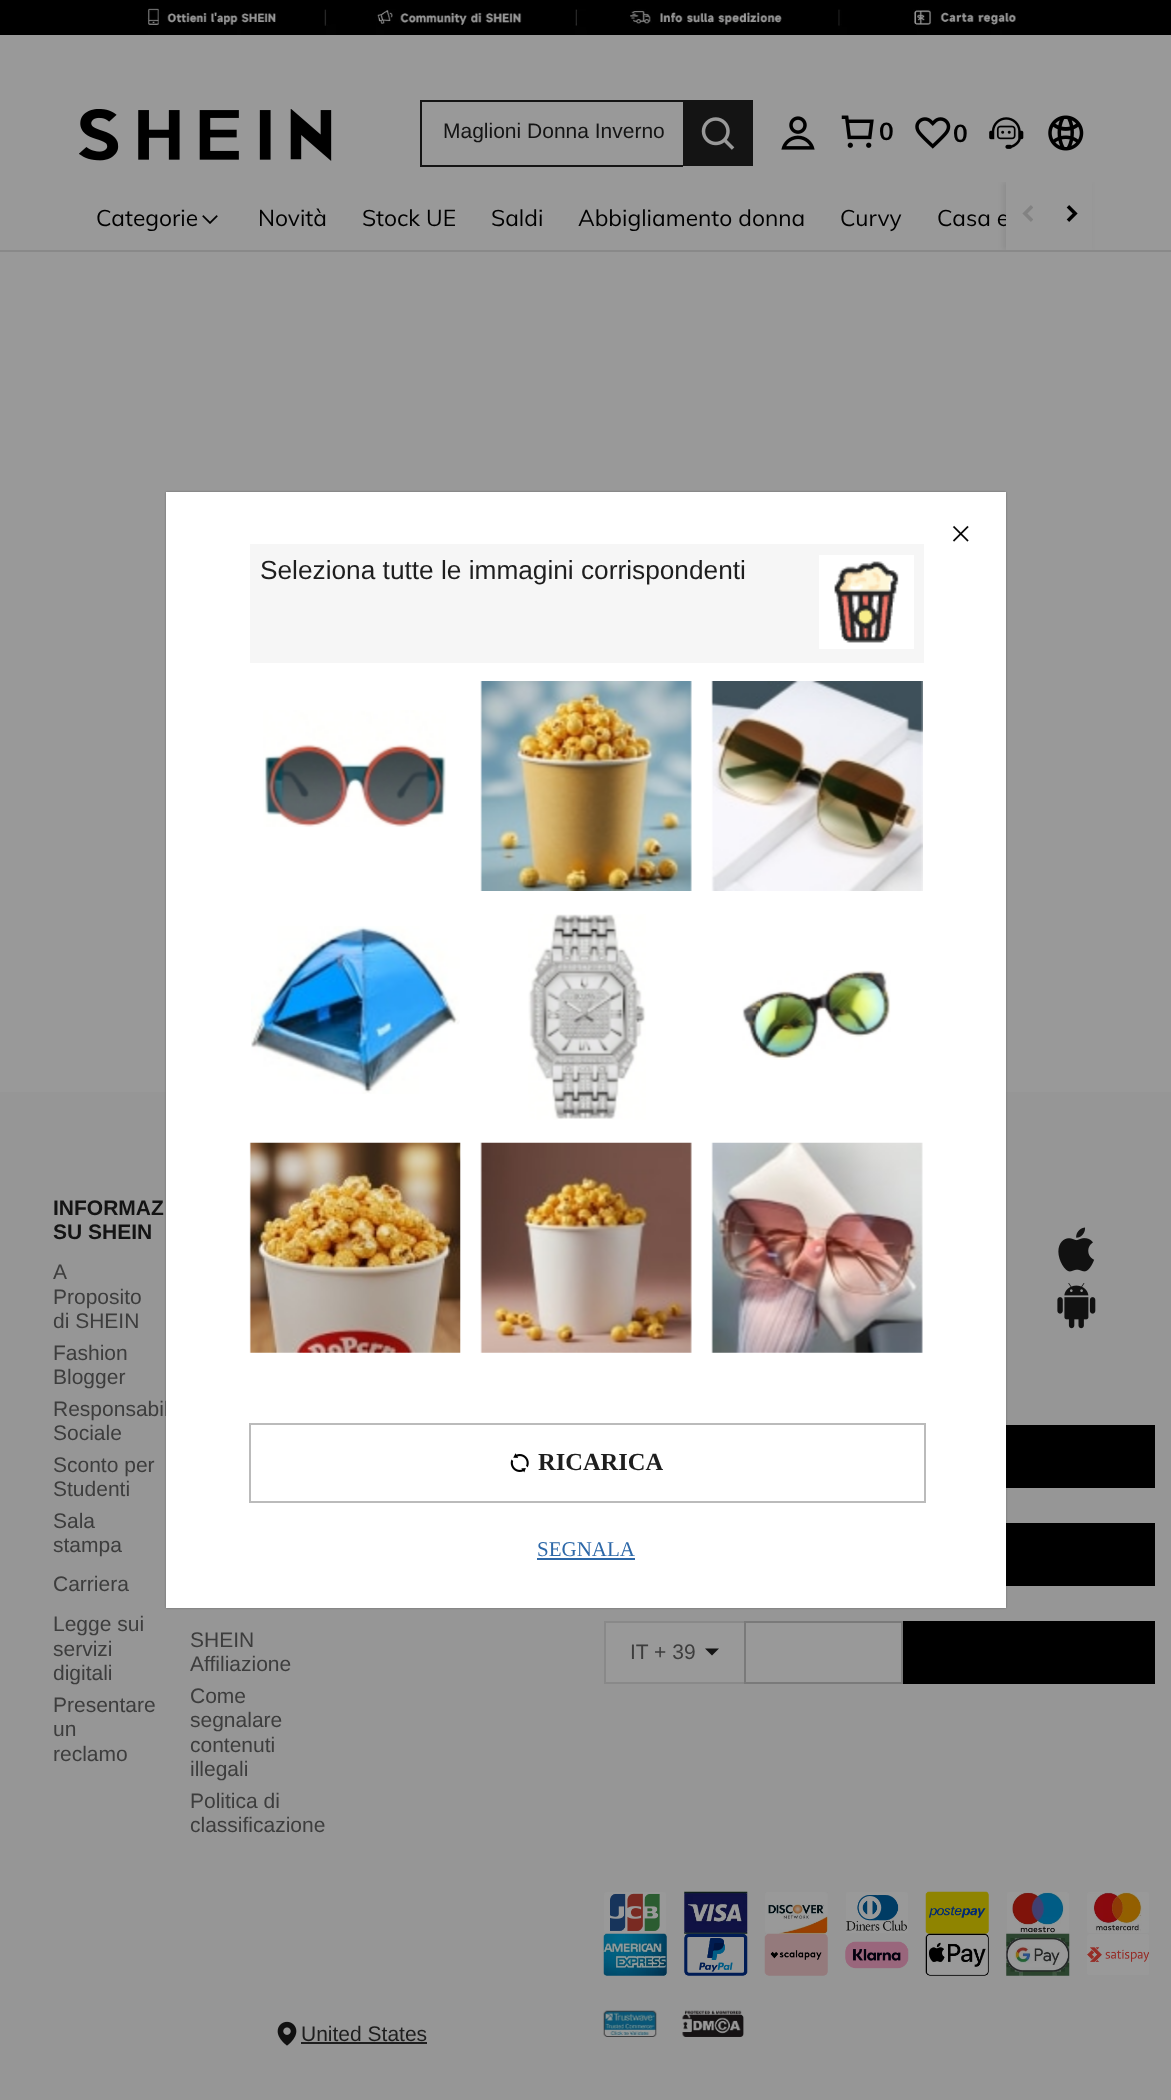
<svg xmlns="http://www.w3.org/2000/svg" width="1171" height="2100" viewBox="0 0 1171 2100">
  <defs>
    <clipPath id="clip1"><rect x="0" y="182" width="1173" height="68"/></clipPath>
    <filter id="blur1" x="-50%" y="-200%" width="200%" height="500%"><feGaussianBlur stdDeviation="2.5"/></filter>
    <filter id="blur2" x="-50%" y="-200%" width="200%" height="500%"><feGaussianBlur stdDeviation="1"/></filter>
  </defs>
  <rect width="100%" height="100%" fill="#999999"/>
  <image x="0" y="0" width="1171" height="35" href="img1.png"/>
  <image x="79" y="109" width="253" height="52" href="img2.png"/>
  <rect x="420" y="100" width="263" height="2" fill="#141414"/>
  <rect x="420" y="165" width="263" height="2" fill="#141414"/>
  <rect x="420" y="100" width="2" height="66" fill="#141414"/>
  <text x="443" y="138" font-family="Liberation Sans" font-size="21" fill="#141414">Maglioni Donna Inverno</text>
  <rect x="683" y="100" width="70" height="66" fill="#141414"/>
  <image x="701" y="117" width="34" height="33" href="img3.png"/>
  <image x="781" y="116" width="34" height="34" href="img4.png"/>
  <image x="841" y="115" width="33" height="33" href="img5.png"/>
  <text x="879" y="140" font-family="Muli" font-size="24.5" font-weight="bold" fill="#000000">0</text>
  <image x="915" y="117" width="36" height="32" href="img6.png"/>
  <text x="953" y="142" font-family="Muli" font-size="24.5" font-weight="bold" fill="#000000">0</text>
  <image x="989" y="117" width="35" height="32" href="img7.png"/>
  <image x="1048" y="115" width="36" height="36" href="img8.png"/>
  <rect x="0" y="250" width="1171" height="2" fill="#898989"/>
  <text x="96" y="226" font-family="Muli" font-size="22.75" fill="#000000">Categorie</text>
  <image x="202" y="215" width="16" height="9" href="img9.png"/>
  <text x="258" y="226" font-family="Muli" font-size="22.75" fill="#000000">Novità</text>
  <text x="362" y="226" font-family="Muli" font-size="22.75" fill="#000000">Stock UE</text>
  <text x="491" y="226" font-family="Muli" font-size="22.75" fill="#000000">Saldi</text>
  <text x="578" y="226" font-family="Muli" font-size="22.75" fill="#000000">Abbigliamento donna</text>
  <text x="840" y="226" font-family="Muli" font-size="22.75" fill="#000000">Curvy</text>
  <text x="937" y="226" font-family="Muli" font-size="22.75" fill="#000000">Casa e</text>
  <g clip-path="url(#clip1)">
    <rect x="1003" y="182" width="87" height="68" fill="#000000" fill-opacity="0.08" filter="url(#blur1)"/>
  </g>
  <rect x="1006" y="182" width="86" height="68" fill="#999999"/>
  <image x="1022" y="205" width="11" height="17" href="img10.png"/>
  <image x="1066" y="205" width="12" height="17" href="img11.png"/>
  <rect x="0" y="1092" width="1171" height="1008" fill="#969696"/>
  <text x="53" y="1215" font-family="Liberation Sans" font-size="21" font-weight="bold" fill="#141414">INFORMAZ</text>
  <text x="53" y="1239" font-family="Liberation Sans" font-size="21" font-weight="bold" fill="#141414">SU SHEIN</text>
  <text x="53" y="1279" font-family="Liberation Sans" font-size="21" fill="#3d3d3d">A</text>
  <text x="53" y="1304" font-family="Liberation Sans" font-size="21" fill="#3d3d3d">Proposito</text>
  <text x="53" y="1328" font-family="Liberation Sans" font-size="21" fill="#3d3d3d">di SHEIN</text>
  <text x="53" y="1360" font-family="Liberation Sans" font-size="21" fill="#3d3d3d">Fashion</text>
  <text x="53" y="1384" font-family="Liberation Sans" font-size="21" fill="#3d3d3d">Blogger</text>
  <text x="53" y="1416" font-family="Liberation Sans" font-size="21" fill="#3d3d3d">Responsabil</text>
  <text x="53" y="1440" font-family="Liberation Sans" font-size="21" fill="#3d3d3d">Sociale</text>
  <text x="53" y="1472" font-family="Liberation Sans" font-size="21" fill="#3d3d3d">Sconto per</text>
  <text x="53" y="1496" font-family="Liberation Sans" font-size="21" fill="#3d3d3d">Studenti</text>
  <text x="53" y="1528" font-family="Liberation Sans" font-size="21" fill="#3d3d3d">Sala</text>
  <text x="53" y="1552" font-family="Liberation Sans" font-size="21" fill="#3d3d3d">stampa</text>
  <text x="53" y="1591" font-family="Liberation Sans" font-size="21" fill="#3d3d3d">Carriera</text>
  <text x="53" y="1631" font-family="Liberation Sans" font-size="21" fill="#3d3d3d">Legge sui</text>
  <text x="53" y="1656" font-family="Liberation Sans" font-size="21" fill="#3d3d3d">servizi</text>
  <text x="53" y="1680" font-family="Liberation Sans" font-size="21" fill="#3d3d3d">digitali</text>
  <text x="53" y="1712" font-family="Liberation Sans" font-size="21" fill="#3d3d3d">Presentare</text>
  <text x="53" y="1736" font-family="Liberation Sans" font-size="21" fill="#3d3d3d">un</text>
  <text x="53" y="1761" font-family="Liberation Sans" font-size="21" fill="#3d3d3d">reclamo</text>
  <text x="190" y="1647" font-family="Liberation Sans" font-size="21" fill="#3d3d3d">SHEIN</text>
  <text x="190" y="1671" font-family="Liberation Sans" font-size="21" fill="#3d3d3d">Affiliazione</text>
  <text x="190" y="1703" font-family="Liberation Sans" font-size="21" fill="#3d3d3d">Come</text>
  <text x="190" y="1727" font-family="Liberation Sans" font-size="21" fill="#3d3d3d">segnalare</text>
  <text x="190" y="1752" font-family="Liberation Sans" font-size="21" fill="#3d3d3d">contenuti</text>
  <text x="190" y="1776" font-family="Liberation Sans" font-size="21" fill="#3d3d3d">illegali</text>
  <text x="190" y="1808" font-family="Liberation Sans" font-size="21" fill="#3d3d3d">Politica di</text>
  <text x="190" y="1832" font-family="Liberation Sans" font-size="21" fill="#3d3d3d">classificazione</text>
  <image x="1058" y="1227" width="37" height="45" href="img12.png"/>
  <image x="1057" y="1283" width="39" height="46" href="img13.png"/>
  <rect x="1006" y="1425" width="149" height="63" fill="#000000"/>
  <rect x="1006" y="1523" width="149" height="63" fill="#000000"/>
  <rect x="606" y="1623" width="138" height="59" fill="#999999"/>
  <rect x="604" y="1621" width="140" height="2" fill="#898989"/>
  <rect x="604" y="1682" width="140" height="2" fill="#898989"/>
  <rect x="604" y="1621" width="2" height="63" fill="#898989"/>
  <text x="630" y="1659" font-family="Liberation Sans" font-size="21" fill="#3d3d3d">IT + 39</text>
  <path d="M705 1648.5H719L712 1655.5Z" fill="#141414"/>
  <rect x="745" y="1622" width="157" height="61" fill="#999999" stroke="#7a7a7a" stroke-width="2"/>
  <rect x="903" y="1621" width="252" height="63" fill="#000000"/>
  <image x="604" y="1892" width="62" height="41" href="img14.png"/>
  <image x="684" y="1891" width="64" height="43" href="img15.png"/>
  <image x="765" y="1892" width="63" height="42" href="img16.png"/>
  <image x="846" y="1892" width="62" height="41" href="img17.png"/>
  <image x="925" y="1891" width="64" height="43" href="img18.png"/>
  <image x="1007" y="1892" width="62" height="41" href="img19.png"/>
  <image x="1087" y="1892" width="62" height="41" href="img20.png"/>
  <image x="603" y="1933" width="64" height="43" href="img21.png"/>
  <image x="684" y="1933" width="64" height="43" href="img22.png"/>
  <image x="764" y="1933" width="64" height="43" href="img23.png"/>
  <image x="845" y="1941" width="64" height="28" href="img24.png"/>
  <image x="925" y="1933" width="64" height="43" href="img25.png"/>
  <image x="1006" y="1933" width="64" height="43" href="img26.png"/>
  <image x="1087" y="1934" width="62" height="41" href="img27.png"/>
  <image x="277" y="2021" width="20" height="25" href="img28.png"/>
  <text x="301" y="2041" font-family="Liberation Sans" font-size="21" fill="#1e1e1e">United States</text>
  <rect x="301" y="2042" width="126" height="2" fill="#1e1e1e"/>
  <image x="603" y="2010" width="54" height="27" href="img29.png"/>
  <image x="682" y="2010" width="62" height="27" href="img30.png"/>
  <rect x="166" y="492" width="840" height="1116" fill="#000000" fill-opacity="0.3" filter="url(#blur2)"/>
  <rect x="166" y="492" width="840" height="1116" fill="#ffffff"/>
  <image x="952" y="525" width="17" height="17" href="img31.png"/>
  <rect x="250" y="544" width="674" height="119" fill="#f6f6f6"/>
  <text x="260" y="579" font-family="Liberation Sans" font-size="26.25" fill="#1e1e1e">Seleziona tutte le immagini corrispondenti</text>
  <rect x="819" y="555" width="95" height="94" fill="#ffffff"/>
  <image x="834" y="561" width="65" height="82" href="img32.png"/>
  <image x="263" y="710" width="183" height="117" href="img33.png"/>
  <image x="480" y="681" width="212" height="210" href="img34.png"/>
  <image x="711" y="681" width="212" height="210" href="img35.png"/>
  <image x="251" y="926" width="209" height="168" href="img36.png"/>
  <image x="528" y="914" width="118" height="206" href="img37.png"/>
  <image x="742" y="970" width="149" height="90" href="img38.png"/>
  <image x="249" y="1142" width="212" height="211" href="img39.png"/>
  <image x="480" y="1142" width="212" height="211" href="img40.png"/>
  <image x="711" y="1142" width="212" height="211" href="img41.png"/>
  <rect x="250" y="1424" width="675" height="78" fill="none" stroke="#bbbbbb" stroke-width="2"/>
  <image x="510" y="1453" width="19" height="20" href="img42.png"/>
  <text x="538" y="1470" font-family="Liberation Serif" font-size="24.5" font-weight="bold" fill="#1e1e1e">RICARICA</text>
  <text x="537" y="1556" font-family="Liberation Serif" font-size="21" fill="#2d68a8">SEGNALA</text>
  <rect x="537" y="1558" width="98" height="2" fill="#2d68a8"/>
</svg>
